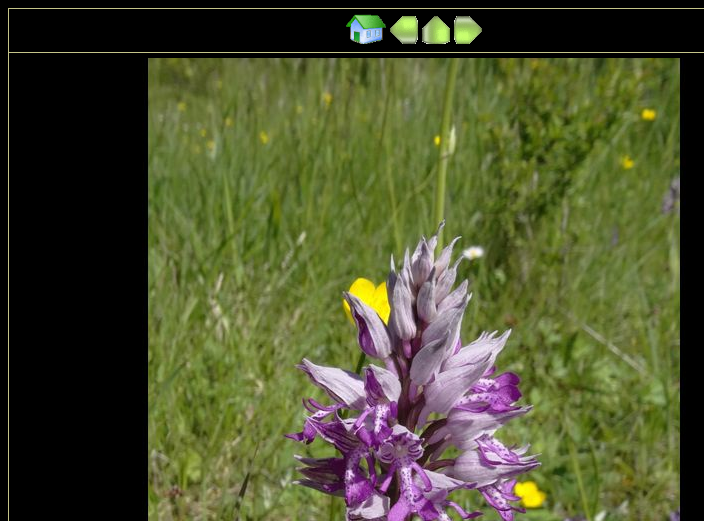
<svg xmlns="http://www.w3.org/2000/svg" width="704" height="521" viewBox="0 0 704 521">
  <rect width="100%" height="100%" fill="#000000"/>
  <rect x="8" y="8" width="696" height="1" fill="#c5c589"/>
  <rect x="8" y="8" width="1" height="513" fill="#c5c589"/>
  <image x="346" y="14" width="40" height="30" href="img1.png"/>
  <image x="390" y="16" width="28" height="28" href="img2.png"/>
  <image x="422" y="16" width="28" height="28" href="img3.png"/>
  <image x="454" y="16" width="28" height="28" href="img4.png"/>
  <rect x="8" y="52" width="696" height="1" fill="#c5c589"/>
  <image x="142" y="58" width="544" height="463" href="img5.png"/>
</svg>
